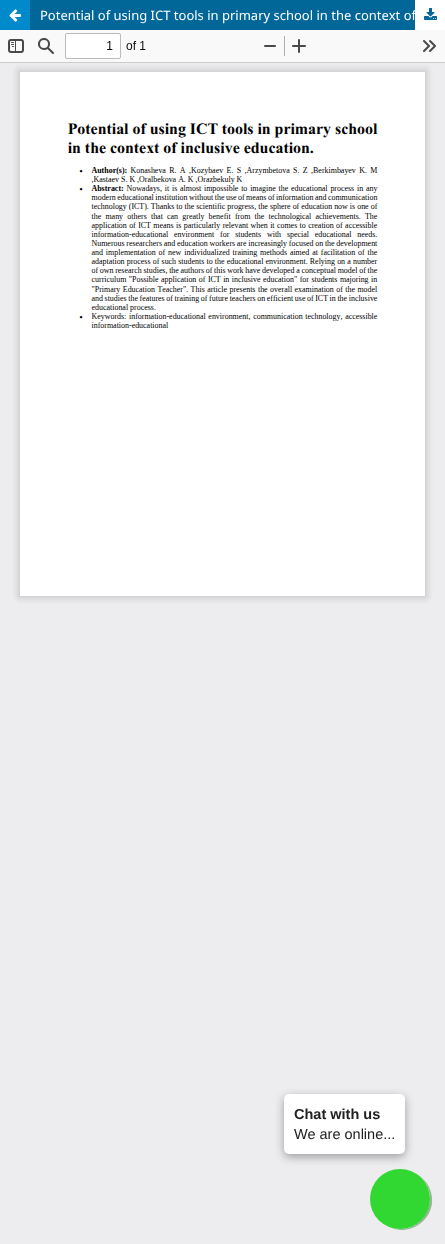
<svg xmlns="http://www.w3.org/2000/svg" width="445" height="1244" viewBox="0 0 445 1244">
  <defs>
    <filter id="blur1" x="-50%" y="-200%" width="200%" height="500%"><feGaussianBlur stdDeviation="5"/></filter>
  </defs>
  <rect width="100%" height="100%" fill="#ffffff"/>
  <rect x="30" y="0" width="385" height="30" fill="#006798"/>
  <rect x="0" y="0" width="30" height="30" fill="#008acb"/>
  <image x="9" y="9" width="12" height="13" href="img1.png"/>
  <text x="40" y="20" font-family="Noto Sans" font-size="13" fill="#ffffff">Potential of using ICT tools in primary school in the context of</text>
  <image x="424" y="8" width="13" height="12" href="img2.png"/>
  <image x="0" y="30" width="445" height="1214" href="img3.png"/>
  <rect x="284" y="1097" width="121" height="60" rx="5" fill="#000000" fill-opacity="0.34" filter="url(#blur1)"/>
  <rect x="284" y="1094" width="121" height="60" rx="5" fill="#ffffff"/>
  <text x="294" y="1119" font-family="Liberation Sans" font-size="14.5" font-weight="bold" fill="#212121">Chat with us</text>
  <text x="294" y="1139" font-family="Liberation Sans" font-size="14.5" fill="#212121">We are online...</text>
  <path d="M388 1226C412 1240 442 1214 429 1187C426 1181 421 1176 414 1173C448 1191 422 1242 388 1226Z" fill="#96b797"/>
  <circle cx="400" cy="1199" r="30" fill="#31d831"/>
</svg>
